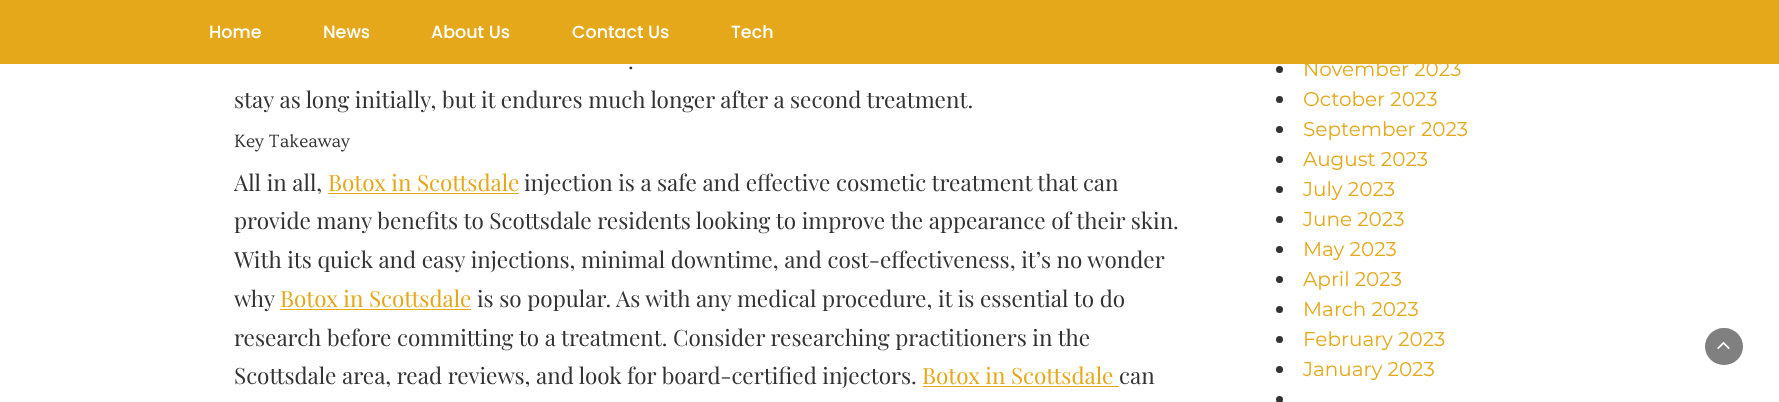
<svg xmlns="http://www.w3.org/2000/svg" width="1779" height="402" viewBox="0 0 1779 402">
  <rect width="100%" height="100%" fill="#ffffff"/>
  <rect x="0" y="0" width="1779" height="64" fill="#e5a81b"/>
  <text x="209" y="38" font-family="Poppins" font-size="17.5" font-weight="500" fill="#ffffff">Home</text>
  <text x="323" y="38" font-family="Poppins" font-size="17.5" font-weight="500" fill="#ffffff">News</text>
  <text x="431" y="38" font-family="Poppins" font-size="17.5" font-weight="500" fill="#ffffff">About Us</text>
  <text x="572" y="38" font-family="Poppins" font-size="17.5" font-weight="500" fill="#ffffff">Contact Us</text>
  <text x="731" y="38" font-family="Poppins" font-size="17.5" font-weight="500" fill="#ffffff">Tech</text>
  <text x="628" y="69" font-family="Playfair Display" font-size="22.5" fill="#333333">.</text>
  <text x="234" y="108" font-family="Playfair Display" font-size="22.5" fill="#333333">stay as long initially, but it endures much longer after a second treatment.</text>
  <text x="234" y="147" font-family="Ovo" font-size="18.75" fill="#333333">Key Takeaway</text>
  <text x="234" y="191" font-family="Playfair Display" font-size="22.5" fill="#333333">All in all,</text>
  <text x="328" y="191" font-family="Playfair Display" font-size="22.5" fill="#e5a81b">Botox in Scottsdale</text>
  <rect x="328" y="193" width="191" height="1" fill="#e5a81b"/>
  <text x="524" y="191" font-family="Playfair Display" font-size="22.5" fill="#333333">injection is a safe and effective cosmetic treatment that can</text>
  <text x="234" y="229" font-family="Playfair Display" font-size="22.5" fill="#333333">provide many benefits to Scottsdale residents looking to improve the appearance of their skin.</text>
  <text x="234" y="268" font-family="Playfair Display" font-size="22.5" fill="#333333">With its quick and easy injections, minimal downtime, and cost-effectiveness, it’s no wonder</text>
  <text x="234" y="307" font-family="Playfair Display" font-size="22.5" fill="#333333">why</text>
  <text x="280" y="307" font-family="Playfair Display" font-size="22.5" fill="#e5a81b">Botox in Scottsdale</text>
  <rect x="280" y="309" width="191" height="1" fill="#e5a81b"/>
  <text x="477" y="307" font-family="Playfair Display" font-size="22.5" fill="#333333">is so popular. As with any medical procedure, it is essential to do</text>
  <text x="234" y="346" font-family="Playfair Display" font-size="22.5" fill="#333333">research before committing to a treatment. Consider researching practitioners in the</text>
  <text x="234" y="384" font-family="Playfair Display" font-size="22.5" fill="#333333">Scottsdale area, read reviews, and look for board-certified injectors.</text>
  <text x="922" y="384" font-family="Playfair Display" font-size="22.5" fill="#e5a81b">Botox in Scottsdale</text>
  <rect x="923" y="386" width="196" height="1" fill="#e5a81b"/>
  <text x="1119" y="384" font-family="Playfair Display" font-size="22.5" fill="#333333">can</text>
  <circle cx="1279.5" cy="69.5" r="3.5" fill="#333333"/>
  <text x="1303" y="76" font-family="Montserrat" font-size="20" fill="#e5a81b">November 2023</text>
  <circle cx="1279.5" cy="99.5" r="3.5" fill="#333333"/>
  <text x="1303" y="106" font-family="Montserrat" font-size="20" fill="#e5a81b">October 2023</text>
  <circle cx="1279.5" cy="129.5" r="3.5" fill="#333333"/>
  <text x="1303" y="136" font-family="Montserrat" font-size="20" fill="#e5a81b">September 2023</text>
  <circle cx="1279.5" cy="159.5" r="3.5" fill="#333333"/>
  <text x="1303" y="166" font-family="Montserrat" font-size="20" fill="#e5a81b">August 2023</text>
  <circle cx="1279.5" cy="189.5" r="3.5" fill="#333333"/>
  <text x="1303" y="196" font-family="Montserrat" font-size="20" fill="#e5a81b">July 2023</text>
  <circle cx="1279.5" cy="219.5" r="3.5" fill="#333333"/>
  <text x="1303" y="226" font-family="Montserrat" font-size="20" fill="#e5a81b">June 2023</text>
  <circle cx="1279.5" cy="249.5" r="3.5" fill="#333333"/>
  <text x="1303" y="256" font-family="Montserrat" font-size="20" fill="#e5a81b">May 2023</text>
  <circle cx="1279.5" cy="279.5" r="3.5" fill="#333333"/>
  <text x="1303" y="286" font-family="Montserrat" font-size="20" fill="#e5a81b">April 2023</text>
  <circle cx="1279.5" cy="309.5" r="3.5" fill="#333333"/>
  <text x="1303" y="316" font-family="Montserrat" font-size="20" fill="#e5a81b">March 2023</text>
  <circle cx="1279.5" cy="339.5" r="3.5" fill="#333333"/>
  <text x="1303" y="346" font-family="Montserrat" font-size="20" fill="#e5a81b">February 2023</text>
  <circle cx="1279.5" cy="369.5" r="3.5" fill="#333333"/>
  <text x="1303" y="376" font-family="Montserrat" font-size="20" fill="#e5a81b">January 2023</text>
  <circle cx="1279.5" cy="399.5" r="3.5" fill="#333333"/>
  <rect x="1705" y="328" width="38" height="37" rx="18.5" fill="#808080"/>
  <image x="1717" y="341" width="13" height="9" href="img1.png"/>
</svg>
